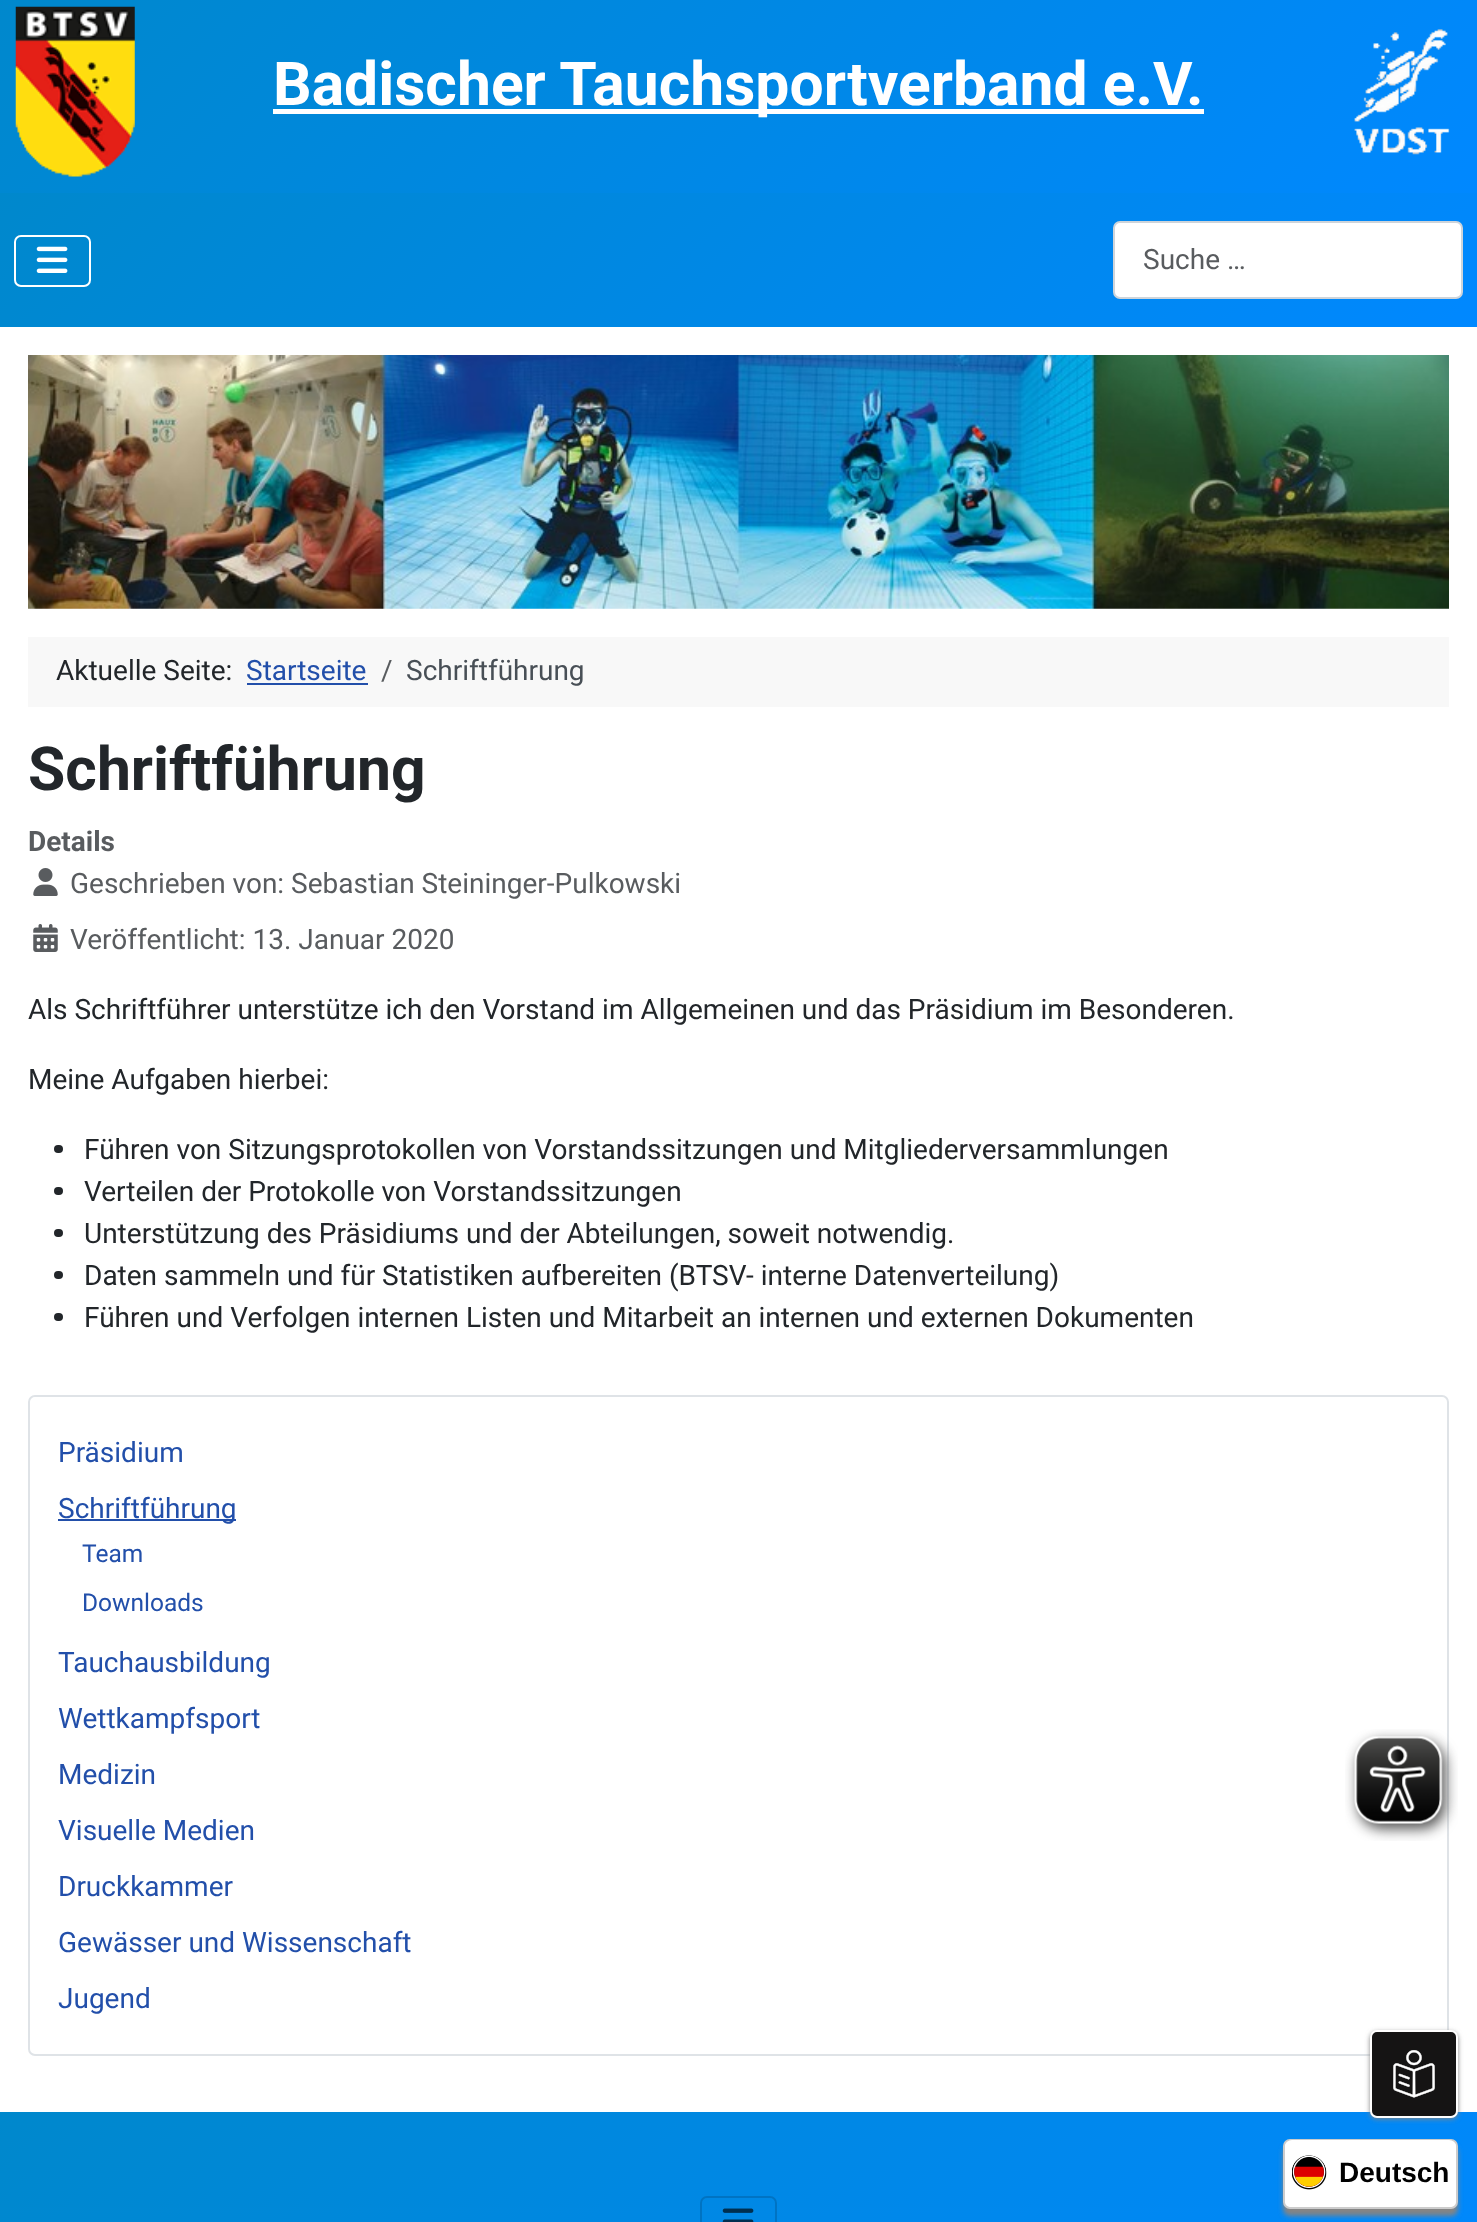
<svg xmlns="http://www.w3.org/2000/svg" width="1477" height="2222" viewBox="0 0 1477 2222">
  <defs>
    <linearGradient id="g1" gradientUnits="userSpaceOnUse" x1="319" y1="-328" x2="1158" y2="511"><stop offset="0" stop-color="#0088cc"/><stop offset="1" stop-color="#0088ff"/></linearGradient>
    <linearGradient id="g2" gradientUnits="userSpaceOnUse" x1="336" y1="-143" x2="1141" y2="663"><stop offset="0" stop-color="#0088cc"/><stop offset="1" stop-color="#0088ff"/></linearGradient>
    <linearGradient id="g3" gradientUnits="userSpaceOnUse" x1="314" y1="1798" x2="1163" y2="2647"><stop offset="0" stop-color="#0088cc"/><stop offset="1" stop-color="#0088ff"/></linearGradient>
    <filter id="blur1" x="-50%" y="-200%" width="200%" height="500%"><feGaussianBlur stdDeviation="2.5"/></filter>
  </defs>
  <rect width="100%" height="100%" fill="#ffffff"/>
  <rect x="0" y="0" width="1477" height="193" fill="url(#g1)"/>
  <image x="15" y="6" width="120" height="171" href="img1.png"/>
  <rect x="273" y="109" width="931" height="5" fill="#ffffff"/>
  <text x="273" y="105" font-family="Roboto" font-size="60.6" font-weight="bold" fill="#ffffff">Badischer Tauchsportverband e.V.</text>
  <image x="1354" y="29" width="96" height="126" href="img2.png"/>
  <rect x="0" y="193" width="1477" height="134" fill="url(#g2)"/>
  <rect x="15" y="236" width="75" height="50" rx="6" fill="none" stroke="#ffffff" stroke-width="2"/>
  <image x="36" y="246" width="32" height="27" href="img3.png"/>
  <rect x="1114" y="222" width="348" height="76" rx="6" fill="#ffffff" stroke="#ced4da" stroke-width="2"/>
  <text x="1143" y="269" font-family="Roboto" font-size="28" fill="#595c5f">Suche …</text>
  <image x="28" y="355" width="1421" height="254" href="img4.png"/>
  <rect x="28" y="637" width="1421" height="70" fill="#f8f8f8"/>
  <text x="56" y="680" font-family="Roboto" font-size="28" fill="#22262a">Aktuelle Seite:</text>
  <text x="246" y="680" font-family="Roboto" font-size="28" fill="#224faa">Startseite</text>
  <rect x="247" y="683" width="121" height="2" fill="#224faa"/>
  <text x="381" y="680" font-family="Roboto" font-size="28" fill="#595c5f">/</text>
  <text x="406" y="680" font-family="Roboto" font-size="28" fill="#484f56">Schriftführung</text>
  <text x="28" y="790" font-family="Roboto" font-size="60.6" font-weight="bold" fill="#22262a">Schriftführung</text>
  <text x="28" y="851" font-family="Roboto" font-size="28" font-weight="bold" fill="#595c5f">Details</text>
  <image x="33" y="868" width="25" height="28" href="img5.png"/>
  <text x="70" y="893" font-family="Roboto" font-size="28" fill="#595c5f">Geschrieben von: Sebastian Steininger-Pulkowski</text>
  <image x="33" y="924" width="25" height="28" href="img6.png"/>
  <text x="70" y="949" font-family="Roboto" font-size="28" fill="#595c5f">Veröffentlicht: 13. Januar 2020</text>
  <text x="28" y="1019" font-family="Roboto" font-size="28" fill="#22262a">Als Schriftführer unterstütze ich den Vorstand im Allgemeinen und das Präsidium im Besonderen.</text>
  <text x="28" y="1089" font-family="Roboto" font-size="28" fill="#22262a">Meine Aufgaben hierbei:</text>
  <rect x="54" y="1145" width="9" height="8" rx="4" fill="#22262a"/>
  <text x="84" y="1159" font-family="Roboto" font-size="28" fill="#22262a">Führen von Sitzungsprotokollen von Vorstandssitzungen und Mitgliederversammlungen</text>
  <rect x="54" y="1187" width="9" height="8" rx="4" fill="#22262a"/>
  <text x="84" y="1201" font-family="Roboto" font-size="28" fill="#22262a">Verteilen der Protokolle von Vorstandssitzungen</text>
  <rect x="54" y="1229" width="9" height="8" rx="4" fill="#22262a"/>
  <text x="84" y="1243" font-family="Roboto" font-size="28" fill="#22262a">Unterstützung des Präsidiums und der Abteilungen, soweit notwendig.</text>
  <rect x="54" y="1271" width="9" height="8" rx="4" fill="#22262a"/>
  <text x="84" y="1285" font-family="Roboto" font-size="28" fill="#22262a">Daten sammeln und für Statistiken aufbereiten (BTSV- interne Datenverteilung)</text>
  <rect x="54" y="1313" width="9" height="8" rx="4" fill="#22262a"/>
  <text x="84" y="1327" font-family="Roboto" font-size="28" fill="#22262a">Führen und Verfolgen internen Listen und Mitarbeit an internen und externen Dokumenten</text>
  <rect x="29" y="1396" width="1419" height="659" rx="6" fill="none" stroke="#dfe3e7" stroke-width="2"/>
  <text x="58" y="1462" font-family="Roboto" font-size="28" fill="#224faa">Präsidium</text>
  <rect x="58" y="1519" width="178" height="2" fill="#224faa"/>
  <text x="58" y="1518" font-family="Roboto" font-size="28" fill="#224faa">Schriftführung</text>
  <text x="82" y="1562" font-family="Roboto" font-size="24.5" fill="#224faa">Team</text>
  <text x="82" y="1611" font-family="Roboto" font-size="24.5" fill="#224faa">Downloads</text>
  <text x="58" y="1672" font-family="Roboto" font-size="28" fill="#224faa">Tauchausbildung</text>
  <text x="58" y="1728" font-family="Roboto" font-size="28" fill="#224faa">Wettkampfsport</text>
  <text x="58" y="1784" font-family="Roboto" font-size="28" fill="#224faa">Medizin</text>
  <text x="58" y="1840" font-family="Roboto" font-size="28" fill="#224faa">Visuelle Medien</text>
  <text x="58" y="1896" font-family="Roboto" font-size="28" fill="#224faa">Druckkammer</text>
  <text x="58" y="1952" font-family="Roboto" font-size="28" fill="#224faa">Gewässer und Wissenschaft</text>
  <text x="58" y="2008" font-family="Roboto" font-size="28" fill="#224faa">Jugend</text>
  <image x="1345" y="1729" width="113" height="112" href="img7.png"/>
  <rect x="0" y="2112" width="1477" height="110" fill="url(#g3)"/>
  <rect x="1370" y="2032" width="88" height="87" rx="7" fill="#848484" filter="url(#blur1)"/>
  <rect x="1371" y="2031" width="86" height="86" rx="6" fill="#151414" stroke="#ffffff" stroke-width="2"/>
  <image x="1393" y="2050" width="42" height="48" href="img8.png"/>
  <rect x="701" y="2197" width="75" height="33" rx="6" fill="none" stroke="#000000" stroke-opacity="0.15" stroke-width="2"/>
  <image x="722" y="2208" width="32" height="14" href="img9.png"/>
  <rect x="1283" y="2146" width="175" height="70" rx="7" fill="#848484" filter="url(#blur1)"/>
  <rect x="1284" y="2140" width="173" height="68" rx="6" fill="#ffffff" stroke="#cccccc" stroke-width="2"/>
  <rect x="1285" y="2140" width="171" height="67" rx="7" fill="#ffffff"/>
  <image x="1292" y="2155" width="35" height="35" href="img10.png"/>
  <text x="1339" y="2182" font-family="Liberation Sans" font-size="28" font-weight="bold" fill="#000000">Deutsch</text>
</svg>
